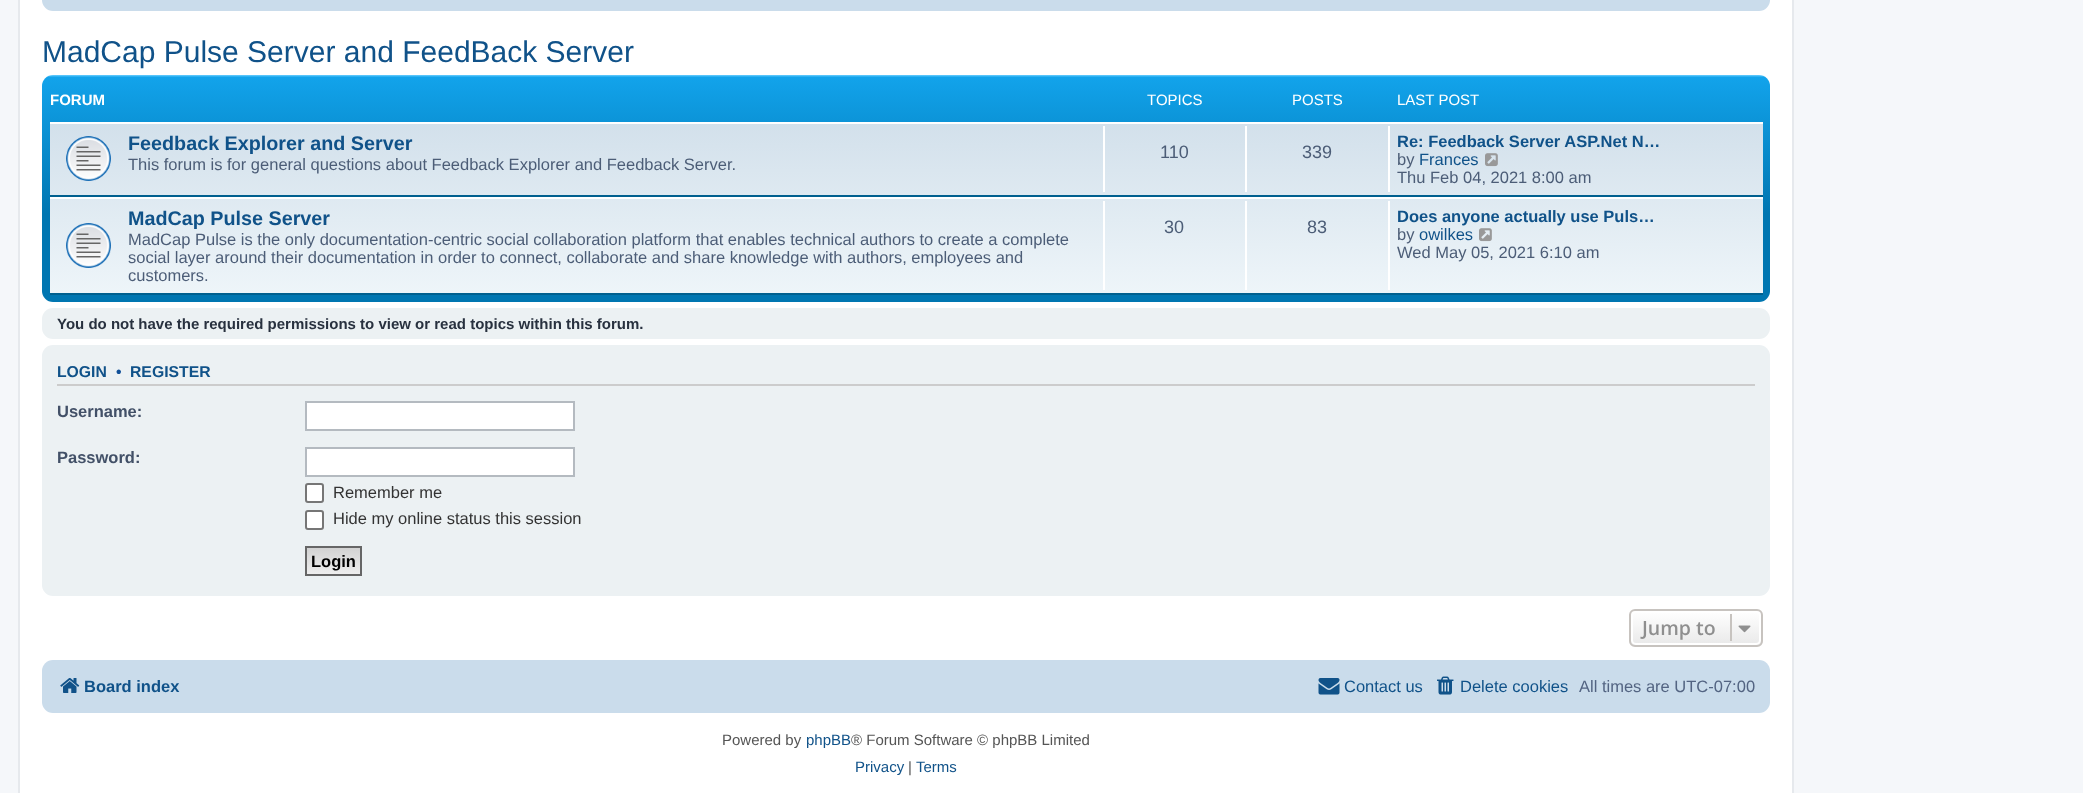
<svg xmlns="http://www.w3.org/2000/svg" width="2083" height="793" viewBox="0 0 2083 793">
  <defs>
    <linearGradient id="g1" gradientUnits="userSpaceOnUse" x1="906" y1="75" x2="906" y2="302"><stop offset="0" stop-color="#6aceff"/><stop offset="0.01" stop-color="#12a3eb"/><stop offset="0.61" stop-color="#0076b1"/><stop offset="1" stop-color="#0076b1"/></linearGradient>
    <linearGradient id="g2" gradientUnits="userSpaceOnUse" x1="906" y1="121" x2="906" y2="294"><stop offset="0" stop-color="#d2e0eb"/><stop offset="1" stop-color="#eef5f9"/></linearGradient>
    <linearGradient id="g3" gradientUnits="userSpaceOnUse" x1="333" y1="548" x2="333" y2="575"><stop offset="0" stop-color="#d2d2d2"/><stop offset="1" stop-color="#efefef"/></linearGradient>
    <clipPath id="clip1"><rect x="1629" y="609" width="134" height="38" rx="6"/></clipPath>
    <linearGradient id="g4" gradientUnits="userSpaceOnUse" x1="1696" y1="611" x2="1696" y2="645"><stop offset="0" stop-color="#ffffff"/><stop offset="1" stop-color="#e9e9e9"/></linearGradient>
  </defs>
  <rect width="100%" height="100%" fill="#f5f7fa"/>
  <rect x="19" y="-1" width="1774" height="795" fill="#ffffff" stroke="#e6e9ed" stroke-width="2"/>
  <rect x="42" y="-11" width="1728" height="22" rx="11" fill="#cadceb"/>
  <text x="42" y="62" font-family="Liberation Sans" font-size="30" fill="#105289">MadCap Pulse Server and FeedBack Server</text>
  <rect x="42" y="75" width="1728" height="227" rx="11" fill="url(#g1)"/>
  <text x="50" y="105" font-family="Liberation Sans" font-size="15" font-weight="bold" fill="#ffffff">FORUM</text>
  <text x="1147" y="105" font-family="Liberation Sans" font-size="15" fill="#ffffff">TOPICS</text>
  <text x="1292" y="105" font-family="Liberation Sans" font-size="15" fill="#ffffff">POSTS</text>
  <text x="1397" y="105" font-family="Liberation Sans" font-size="15" fill="#ffffff">LAST POST</text>
  <rect x="50" y="124" width="1713" height="169" fill="url(#g2)"/>
  <rect x="50" y="122" width="1713" height="2" fill="#ffffff"/>
  <rect x="50" y="195" width="1713" height="2" fill="#00608f"/>
  <image x="66" y="136" width="45" height="45" href="img1.png"/>
  <text x="128" y="150" font-family="Liberation Sans" font-size="19.75" font-weight="bold" fill="#105289">Feedback Explorer and Server</text>
  <text x="128" y="170" font-family="Liberation Sans" font-size="16.5" fill="#4c5d77">This forum is for general questions about Feedback Explorer and Feedback Server.</text>
  <rect x="1103" y="126" width="2" height="66" fill="#ffffff"/>
  <text x="1160" y="158" font-family="Liberation Sans" font-size="18" fill="#4c5d77">110</text>
  <rect x="1245" y="126" width="2" height="66" fill="#ffffff"/>
  <text x="1302" y="158" font-family="Liberation Sans" font-size="18" fill="#4c5d77">339</text>
  <rect x="1388" y="126" width="2" height="66" fill="#ffffff"/>
  <text x="1397" y="147" font-family="Liberation Sans" font-size="16.5" font-weight="bold" fill="#105289">Re: Feedback Server ASP.Net N…</text>
  <text x="1397" y="165" font-family="Liberation Sans" font-size="16.5" fill="#4c5d77">by</text>
  <text x="1419" y="165" font-family="Liberation Sans" font-size="16.5" fill="#105289">Frances</text>
  <image x="1485" y="153" width="13" height="14" href="img2.png"/>
  <text x="1397" y="183" font-family="Liberation Sans" font-size="16.5" fill="#4c5d77">Thu Feb 04, 2021 8:00 am</text>
  <rect x="50" y="197" width="1713" height="2" fill="#ffffff"/>
  <rect x="50" y="293" width="1713" height="2" fill="#00608f"/>
  <image x="66" y="223" width="45" height="45" href="img3.png"/>
  <text x="128" y="225" font-family="Liberation Sans" font-size="19.75" font-weight="bold" fill="#105289">MadCap Pulse Server</text>
  <text x="128" y="245" font-family="Liberation Sans" font-size="16.5" fill="#4c5d77">MadCap Pulse is the only documentation-centric social collaboration platform that enables technical authors to create a complete</text>
  <text x="128" y="263" font-family="Liberation Sans" font-size="16.5" fill="#4c5d77">social layer around their documentation in order to connect, collaborate and share knowledge with authors, employees and</text>
  <text x="128" y="281" font-family="Liberation Sans" font-size="16.5" fill="#4c5d77">customers.</text>
  <rect x="1103" y="201" width="2" height="89" fill="#ffffff"/>
  <text x="1164" y="233" font-family="Liberation Sans" font-size="18" fill="#4c5d77">30</text>
  <rect x="1245" y="201" width="2" height="89" fill="#ffffff"/>
  <text x="1307" y="233" font-family="Liberation Sans" font-size="18" fill="#4c5d77">83</text>
  <rect x="1388" y="201" width="2" height="89" fill="#ffffff"/>
  <text x="1397" y="222" font-family="Liberation Sans" font-size="16.5" font-weight="bold" fill="#105289">Does anyone actually use Puls…</text>
  <text x="1397" y="240" font-family="Liberation Sans" font-size="16.5" fill="#4c5d77">by</text>
  <text x="1419" y="240" font-family="Liberation Sans" font-size="16.5" fill="#105289">owilkes</text>
  <image x="1479" y="228" width="13" height="14" href="img4.png"/>
  <text x="1397" y="258" font-family="Liberation Sans" font-size="16.5" fill="#4c5d77">Wed May 05, 2021 6:10 am</text>
  <rect x="42" y="308" width="1728" height="31" rx="11" fill="#ecf1f3"/>
  <text x="57" y="329" font-family="Liberation Sans" font-size="15" font-weight="bold" fill="#28313f">You do not have the required permissions to view or read topics within this forum.</text>
  <rect x="42" y="345" width="1728" height="251" rx="11" fill="#ecf1f3"/>
  <rect x="57" y="384" width="1698" height="2" fill="#cccccc"/>
  <text x="57" y="377" font-family="Liberation Sans" font-size="15.75" font-weight="bold" fill="#105289">LOGIN</text>
  <text x="116" y="377" font-family="Liberation Sans" font-size="15.75" font-weight="bold" fill="#115098">•</text>
  <text x="130" y="377" font-family="Liberation Sans" font-size="15.75" font-weight="bold" fill="#105289">REGISTER</text>
  <text x="57" y="417" font-family="Liberation Sans" font-size="16.5" font-weight="bold" fill="#425067">Username:</text>
  <rect x="306" y="402" width="268" height="28" fill="#ffffff" stroke="#b4bac0" stroke-width="2"/>
  <text x="57" y="463" font-family="Liberation Sans" font-size="16.5" font-weight="bold" fill="#425067">Password:</text>
  <rect x="306" y="448" width="268" height="28" fill="#ffffff" stroke="#b4bac0" stroke-width="2"/>
  <rect x="306" y="484" width="17" height="18" rx="2" fill="#ffffff" stroke="#767676" stroke-width="2"/>
  <text x="333" y="498" font-family="Liberation Sans" font-size="16.5" fill="#333333">Remember me</text>
  <rect x="306" y="511" width="17" height="18" rx="2" fill="#ffffff" stroke="#767676" stroke-width="2"/>
  <text x="333" y="524" font-family="Liberation Sans" font-size="16.5" fill="#333333">Hide my online status this session</text>
  <rect x="307" y="548" width="53" height="26" fill="url(#g3)"/>
  <rect x="306" y="547" width="55" height="28" fill="none" stroke="#666666" stroke-width="2"/>
  <text x="311" y="567" font-family="Liberation Sans" font-size="16.5" font-weight="bold" fill="#000000">Login</text>
  <g clip-path="url(#clip1)">
    <rect x="1629" y="611" width="134" height="34" fill="url(#g4)"/>
  </g>
  <rect x="1632" y="612" width="128" height="32" rx="4" fill="none" stroke="#ffffff" stroke-width="2"/>
  <rect x="1630" y="610" width="132" height="36" rx="5" fill="none" stroke="#c7c3bf" stroke-width="2"/>
  <text x="1642" y="635" font-family="Open Sans" font-size="19.5" font-weight="600" fill="#8f8f8f">Jump to</text>
  <rect x="1730" y="614" width="2" height="27" fill="#c7c3bf"/>
  <image x="1738" y="625" width="13" height="8" href="img5.png"/>
  <rect x="42" y="660" width="1728" height="53" rx="11" fill="#cadceb"/>
  <image x="60" y="678" width="20" height="15" href="img6.png"/>
  <text x="84" y="692" font-family="Liberation Sans" font-size="16.5" font-weight="bold" fill="#105289">Board index</text>
  <image x="1318" y="678" width="22" height="17" href="img7.png"/>
  <text x="1344" y="692" font-family="Liberation Sans" font-size="16.5" fill="#105289">Contact us</text>
  <image x="1437" y="676" width="17" height="19" href="img8.png"/>
  <text x="1460" y="692" font-family="Liberation Sans" font-size="16.5" fill="#105289">Delete cookies</text>
  <text x="1579" y="692" font-family="Liberation Sans" font-size="16.5" fill="#536482">All times are UTC-07:00</text>
  <text x="722" y="745" font-family="Liberation Sans" font-size="15" fill="#555555">Powered by</text>
  <text x="806" y="745" font-family="Liberation Sans" font-size="15" fill="#105289">phpBB</text>
  <text x="851" y="745" font-family="Liberation Sans" font-size="15" fill="#555555">® Forum Software © phpBB Limited</text>
  <text x="855" y="772" font-family="Liberation Sans" font-size="15" fill="#105289">Privacy</text>
  <text x="908" y="772" font-family="Liberation Sans" font-size="15" fill="#555555">|</text>
  <text x="916" y="772" font-family="Liberation Sans" font-size="15" fill="#105289">Terms</text>
</svg>
